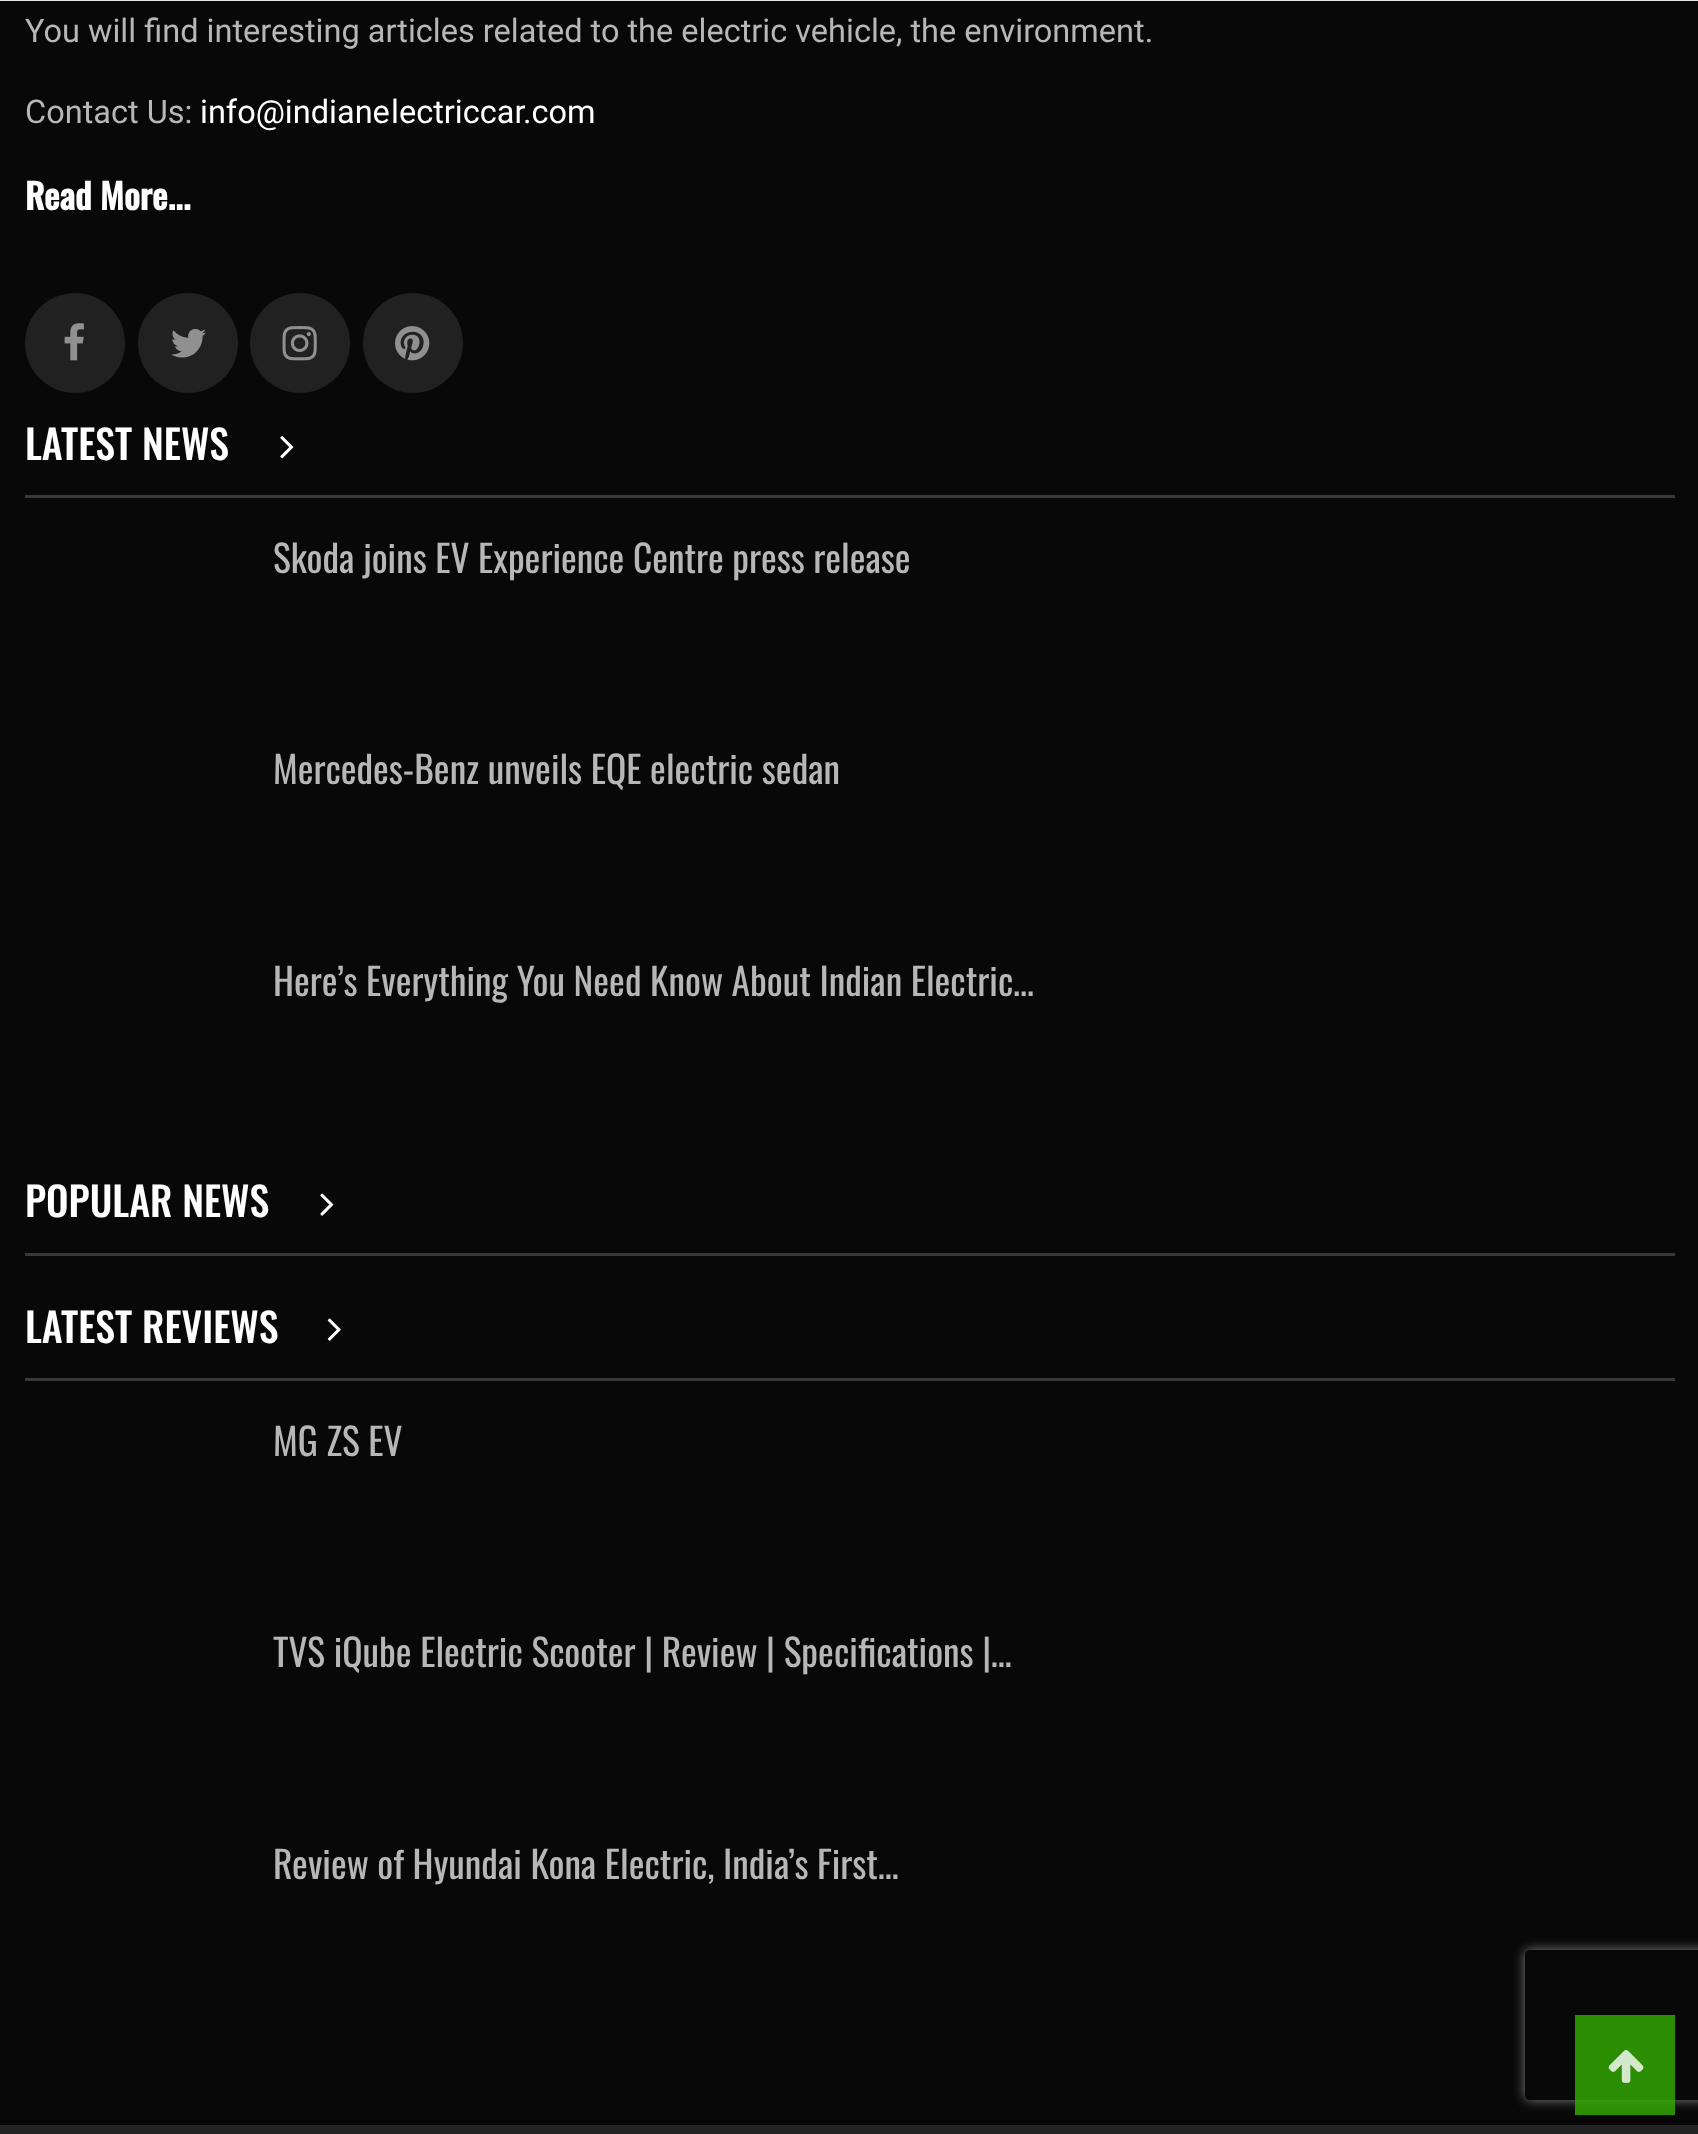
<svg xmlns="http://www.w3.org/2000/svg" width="1698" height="2134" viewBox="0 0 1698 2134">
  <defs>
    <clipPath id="clip1"><path d="M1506 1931H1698V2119H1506ZM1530 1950H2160C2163 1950 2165 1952 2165 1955V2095C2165 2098 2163 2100 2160 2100H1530C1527 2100 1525 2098 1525 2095V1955C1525 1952 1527 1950 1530 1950Z" clip-rule="evenodd"/></clipPath>
    <filter id="blur1" x="-50%" y="-200%" width="200%" height="500%"><feGaussianBlur stdDeviation="6"/></filter>
  </defs>
  <rect width="100%" height="100%" fill="#080808"/>
  <rect x="0" y="0" width="1698" height="1" fill="#e5e5e5"/>
  <text x="25" y="42" font-family="Roboto" font-size="32.5" fill="#b7b7b7">You will find interesting articles related to the electric vehicle, the environment.</text>
  <text x="25" y="123" font-family="Roboto" font-size="32.5" fill="#b7b7b7">Contact Us:</text>
  <text x="200" y="123" font-family="Roboto" font-size="32.5" fill="#ffffff">info@indiane</text>
  <text x="391" y="123" font-family="Roboto" font-size="32.5" fill="#ffffff">lectriccar</text>
  <text x="523" y="123" font-family="Roboto" font-size="32.5" fill="#ffffff">.com</text>
  <text x="25" y="210" font-family="Oswald" font-size="35" font-weight="bold" fill="#ffffff">Read More...</text>
  <circle cx="75" cy="343" r="50" fill="#212121"/>
  <image x="64" y="323" width="20" height="38" href="img1.png"/>
  <circle cx="188" cy="343" r="50" fill="#212121"/>
  <image x="171" y="328" width="35" height="30" href="img2.png"/>
  <circle cx="300" cy="343" r="50" fill="#212121"/>
  <image x="282" y="326" width="35" height="35" href="img3.png"/>
  <circle cx="413" cy="343" r="50" fill="#212121"/>
  <image x="395" y="326" width="35" height="35" href="img4.png"/>
  <text x="25" y="460" font-family="Oswald" font-size="40" font-weight="500" fill="#ffffff">LATEST NEWS</text>
  <image x="280" y="436" width="14" height="23" href="img5.png"/>
  <rect x="25" y="495" width="1650" height="3" fill="#393939"/>
  <text x="273" y="573" font-family="Oswald" font-size="37.5" fill="#b7b7b7">Skoda joins EV Experience Centre press release</text>
  <text x="273" y="784" font-family="Oswald" font-size="37.5" fill="#b7b7b7">Mercedes-Benz unveils EQE electric sedan</text>
  <text x="273" y="996" font-family="Oswald" font-size="37.5" fill="#b7b7b7">Here’s Everything You Need Know About Indian Electric…</text>
  <text x="25" y="1217" font-family="Oswald" font-size="40" font-weight="500" fill="#ffffff">POPULAR NEWS</text>
  <image x="320" y="1193" width="14" height="23" href="img6.png"/>
  <rect x="25" y="1253" width="1650" height="3" fill="#393939"/>
  <text x="25" y="1343" font-family="Oswald" font-size="40" font-weight="500" fill="#ffffff">LATEST REVIEWS</text>
  <image x="327" y="1318" width="14" height="23" href="img7.png"/>
  <rect x="25" y="1378" width="1650" height="3" fill="#393939"/>
  <text x="273" y="1456" font-family="Oswald" font-size="37.5" fill="#b7b7b7">MG ZS EV</text>
  <text x="273" y="1667" font-family="Oswald" font-size="37.5" fill="#b7b7b7">TVS iQube Electric Scooter | Review | Specifications |…</text>
  <text x="273" y="1879" font-family="Oswald" font-size="37.5" fill="#b7b7b7">Review of Hyundai Kona Electric, India’s First…</text>
  <rect x="0" y="2125" width="1698" height="9" fill="#242424"/>
  <g clip-path="url(#clip1)">
    <rect x="1525" y="1950" width="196" height="150" rx="5" fill="#808080" filter="url(#blur1)"/>
  </g>
  <rect x="1575" y="2015" width="100" height="100" fill="#35af00" fill-opacity="0.8"/>
  <image x="1608" y="2050" width="36" height="33" href="img8.png"/>
</svg>
